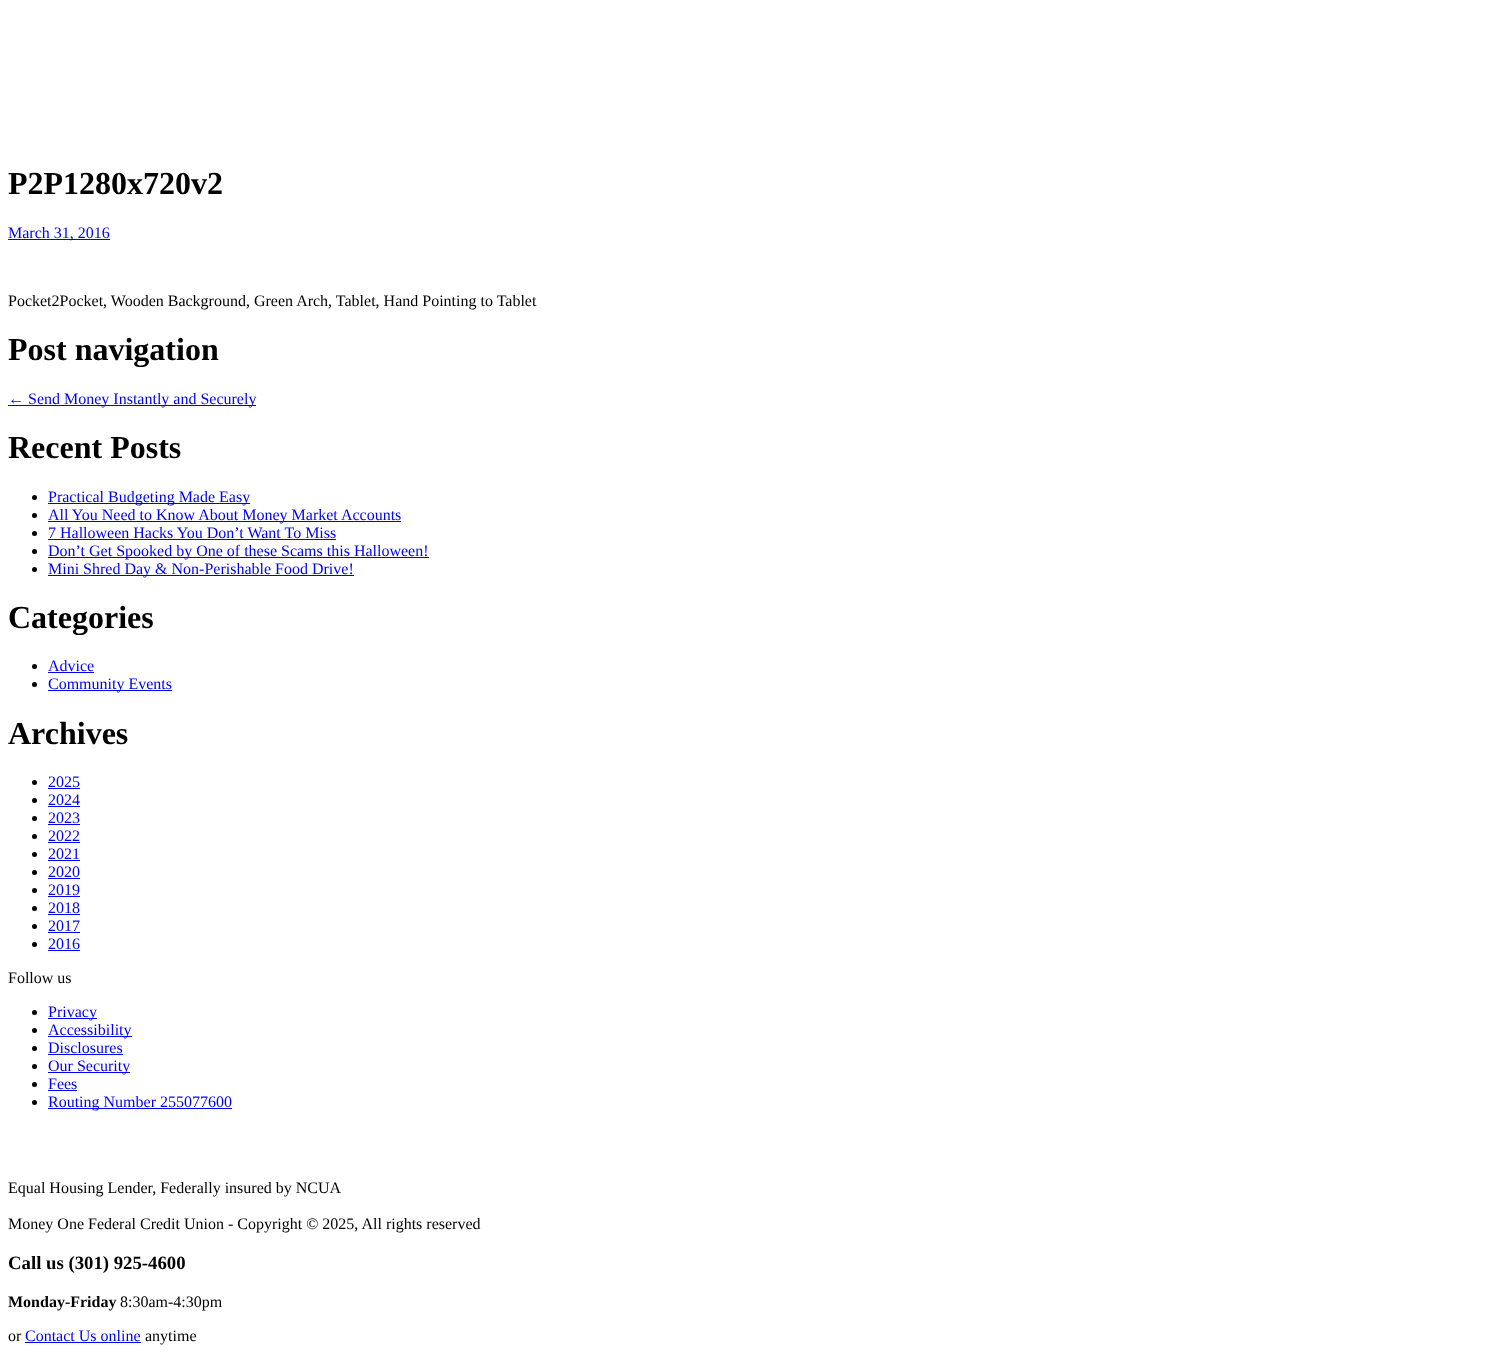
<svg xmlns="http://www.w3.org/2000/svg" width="1489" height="1362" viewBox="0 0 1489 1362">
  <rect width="100%" height="100%" fill="#ffffff"/>
  <text x="8" y="194" font-family="Liberation Serif" font-size="32" font-weight="bold" fill="#000000">P2P1280x720v2</text>
  <rect x="8" y="239" width="102" height="1" fill="#0000ee"/>
  <text x="8" y="238" font-family="Liberation Serif" font-size="16" fill="#0000ee">March 31, 2016</text>
  <text x="8" y="306" font-family="Liberation Serif" font-size="16" fill="#000000">Pocket2Pocket, Wooden Background, Green Arch, Tablet, Hand Pointing to Tablet</text>
  <text x="8" y="360" font-family="Liberation Serif" font-size="32" font-weight="bold" fill="#000000">Post navigation</text>
  <rect x="8" y="405" width="248" height="1" fill="#0000ee"/>
  <text x="8" y="404" font-family="Liberation Serif" font-size="16" fill="#0000ee">← Send Money Instantly and Securely</text>
  <text x="8" y="458" font-family="Liberation Serif" font-size="32" font-weight="bold" fill="#000000">Recent Posts</text>
  <circle cx="34.5" cy="497.5" r="2.5" fill="#000000"/>
  <rect x="48" y="503" width="202" height="1" fill="#0000ee"/>
  <text x="48" y="502" font-family="Liberation Serif" font-size="16" fill="#0000ee">Practical Budgeting Made Easy</text>
  <circle cx="34.5" cy="515.5" r="2.5" fill="#000000"/>
  <rect x="48" y="521" width="353" height="1" fill="#0000ee"/>
  <text x="48" y="520" font-family="Liberation Serif" font-size="16" fill="#0000ee">All You Need to Know About Money Market Accounts</text>
  <circle cx="34.5" cy="533.5" r="2.5" fill="#000000"/>
  <text x="48" y="538" font-family="Liberation Serif" font-size="16" fill="#0000ee">7 Halloween Hacks You Don’t Want To Miss</text>
  <rect x="48" y="539" width="288" height="1" fill="#0000ee"/>
  <circle cx="34.5" cy="551.5" r="2.5" fill="#000000"/>
  <rect x="48" y="557" width="381" height="1" fill="#0000ee"/>
  <text x="48" y="556" font-family="Liberation Serif" font-size="16" fill="#0000ee">Don’t Get Spooked by One of these Scams this Halloween!</text>
  <circle cx="34.5" cy="569.5" r="2.5" fill="#000000"/>
  <rect x="48" y="575" width="306" height="1" fill="#0000ee"/>
  <text x="48" y="574" font-family="Liberation Serif" font-size="16" fill="#0000ee">Mini Shred Day &amp; Non-Perishable Food Drive!</text>
  <text x="8" y="628" font-family="Liberation Serif" font-size="32" font-weight="bold" fill="#000000">Categories</text>
  <circle cx="34.5" cy="666.5" r="2.5" fill="#000000"/>
  <text x="48" y="671" font-family="Liberation Serif" font-size="16" fill="#0000ee">Advice</text>
  <rect x="48" y="672" width="46" height="1" fill="#0000ee"/>
  <circle cx="34.5" cy="684.5" r="2.5" fill="#000000"/>
  <rect x="48" y="690" width="124" height="1" fill="#0000ee"/>
  <text x="48" y="689" font-family="Liberation Serif" font-size="16" fill="#0000ee">Community Events</text>
  <text x="8" y="744" font-family="Liberation Serif" font-size="32" font-weight="bold" fill="#000000">Archives</text>
  <circle cx="34.5" cy="782.5" r="2.5" fill="#000000"/>
  <text x="48" y="787" font-family="Liberation Serif" font-size="16" fill="#0000ee">2025</text>
  <rect x="48" y="788" width="32" height="1" fill="#0000ee"/>
  <circle cx="34.5" cy="800.5" r="2.5" fill="#000000"/>
  <text x="48" y="805" font-family="Liberation Serif" font-size="16" fill="#0000ee">2024</text>
  <rect x="48" y="806" width="32" height="1" fill="#0000ee"/>
  <circle cx="34.5" cy="818.5" r="2.5" fill="#000000"/>
  <text x="48" y="823" font-family="Liberation Serif" font-size="16" fill="#0000ee">2023</text>
  <rect x="48" y="824" width="32" height="1" fill="#0000ee"/>
  <circle cx="34.5" cy="836.5" r="2.5" fill="#000000"/>
  <text x="48" y="841" font-family="Liberation Serif" font-size="16" fill="#0000ee">2022</text>
  <rect x="48" y="842" width="32" height="1" fill="#0000ee"/>
  <circle cx="34.5" cy="854.5" r="2.5" fill="#000000"/>
  <text x="48" y="859" font-family="Liberation Serif" font-size="16" fill="#0000ee">2021</text>
  <rect x="48" y="860" width="32" height="1" fill="#0000ee"/>
  <circle cx="34.5" cy="872.5" r="2.5" fill="#000000"/>
  <text x="48" y="877" font-family="Liberation Serif" font-size="16" fill="#0000ee">2020</text>
  <rect x="48" y="878" width="32" height="1" fill="#0000ee"/>
  <circle cx="34.5" cy="890.5" r="2.5" fill="#000000"/>
  <text x="48" y="895" font-family="Liberation Serif" font-size="16" fill="#0000ee">2019</text>
  <rect x="48" y="896" width="32" height="1" fill="#0000ee"/>
  <circle cx="34.5" cy="908.5" r="2.5" fill="#000000"/>
  <text x="48" y="913" font-family="Liberation Serif" font-size="16" fill="#0000ee">2018</text>
  <rect x="48" y="914" width="32" height="1" fill="#0000ee"/>
  <circle cx="34.5" cy="926.5" r="2.5" fill="#000000"/>
  <text x="48" y="931" font-family="Liberation Serif" font-size="16" fill="#0000ee">2017</text>
  <rect x="48" y="932" width="32" height="1" fill="#0000ee"/>
  <circle cx="34.5" cy="944.5" r="2.5" fill="#000000"/>
  <text x="48" y="949" font-family="Liberation Serif" font-size="16" fill="#0000ee">2016</text>
  <rect x="48" y="950" width="32" height="1" fill="#0000ee"/>
  <text x="8" y="983" font-family="Liberation Serif" font-size="16" fill="#000000">Follow us</text>
  <circle cx="34.5" cy="1012.5" r="2.5" fill="#000000"/>
  <rect x="48" y="1018" width="49" height="1" fill="#0000ee"/>
  <text x="48" y="1017" font-family="Liberation Serif" font-size="16" fill="#0000ee">Privacy</text>
  <circle cx="34.5" cy="1030.5" r="2.5" fill="#000000"/>
  <rect x="48" y="1036" width="84" height="1" fill="#0000ee"/>
  <text x="48" y="1035" font-family="Liberation Serif" font-size="16" fill="#0000ee">Accessibility</text>
  <circle cx="34.5" cy="1048.5" r="2.5" fill="#000000"/>
  <text x="48" y="1053" font-family="Liberation Serif" font-size="16" fill="#0000ee">Disclosures</text>
  <rect x="48" y="1054" width="75" height="1" fill="#0000ee"/>
  <circle cx="34.5" cy="1066.5" r="2.5" fill="#000000"/>
  <rect x="48" y="1072" width="82" height="1" fill="#0000ee"/>
  <text x="48" y="1071" font-family="Liberation Serif" font-size="16" fill="#0000ee">Our Security</text>
  <circle cx="34.5" cy="1084.5" r="2.5" fill="#000000"/>
  <text x="48" y="1089" font-family="Liberation Serif" font-size="16" fill="#0000ee">Fees</text>
  <rect x="48" y="1090" width="29" height="1" fill="#0000ee"/>
  <circle cx="34.5" cy="1102.5" r="2.5" fill="#000000"/>
  <rect x="48" y="1108" width="184" height="1" fill="#0000ee"/>
  <text x="48" y="1107" font-family="Liberation Serif" font-size="16" fill="#0000ee">Routing Number 255077600</text>
  <text x="8" y="1193" font-family="Liberation Serif" font-size="16" fill="#000000">Equal Housing Lender, Federally insured by NCUA</text>
  <text x="8" y="1229" font-family="Liberation Serif" font-size="16" fill="#000000">Money One Federal Credit Union - Copyright © 2025, All rights reserved</text>
  <text x="8" y="1269" font-family="Liberation Serif" font-size="18.75" font-weight="bold" fill="#000000">Call us (301) 925-4600</text>
  <text x="8" y="1307" font-family="Liberation Serif" font-size="16" font-weight="bold" fill="#000000">Monday-Friday</text>
  <text x="120" y="1307" font-family="Liberation Serif" font-size="16" fill="#000000">8:30am-4:30pm</text>
  <text x="8" y="1341" font-family="Liberation Serif" font-size="16" fill="#000000">or</text>
  <text x="25" y="1341" font-family="Liberation Serif" font-size="16" fill="#0000ee">Contact Us online</text>
  <rect x="25" y="1342" width="116" height="1" fill="#0000ee"/>
  <text x="145" y="1341" font-family="Liberation Serif" font-size="16" fill="#000000">anytime</text>
</svg>
